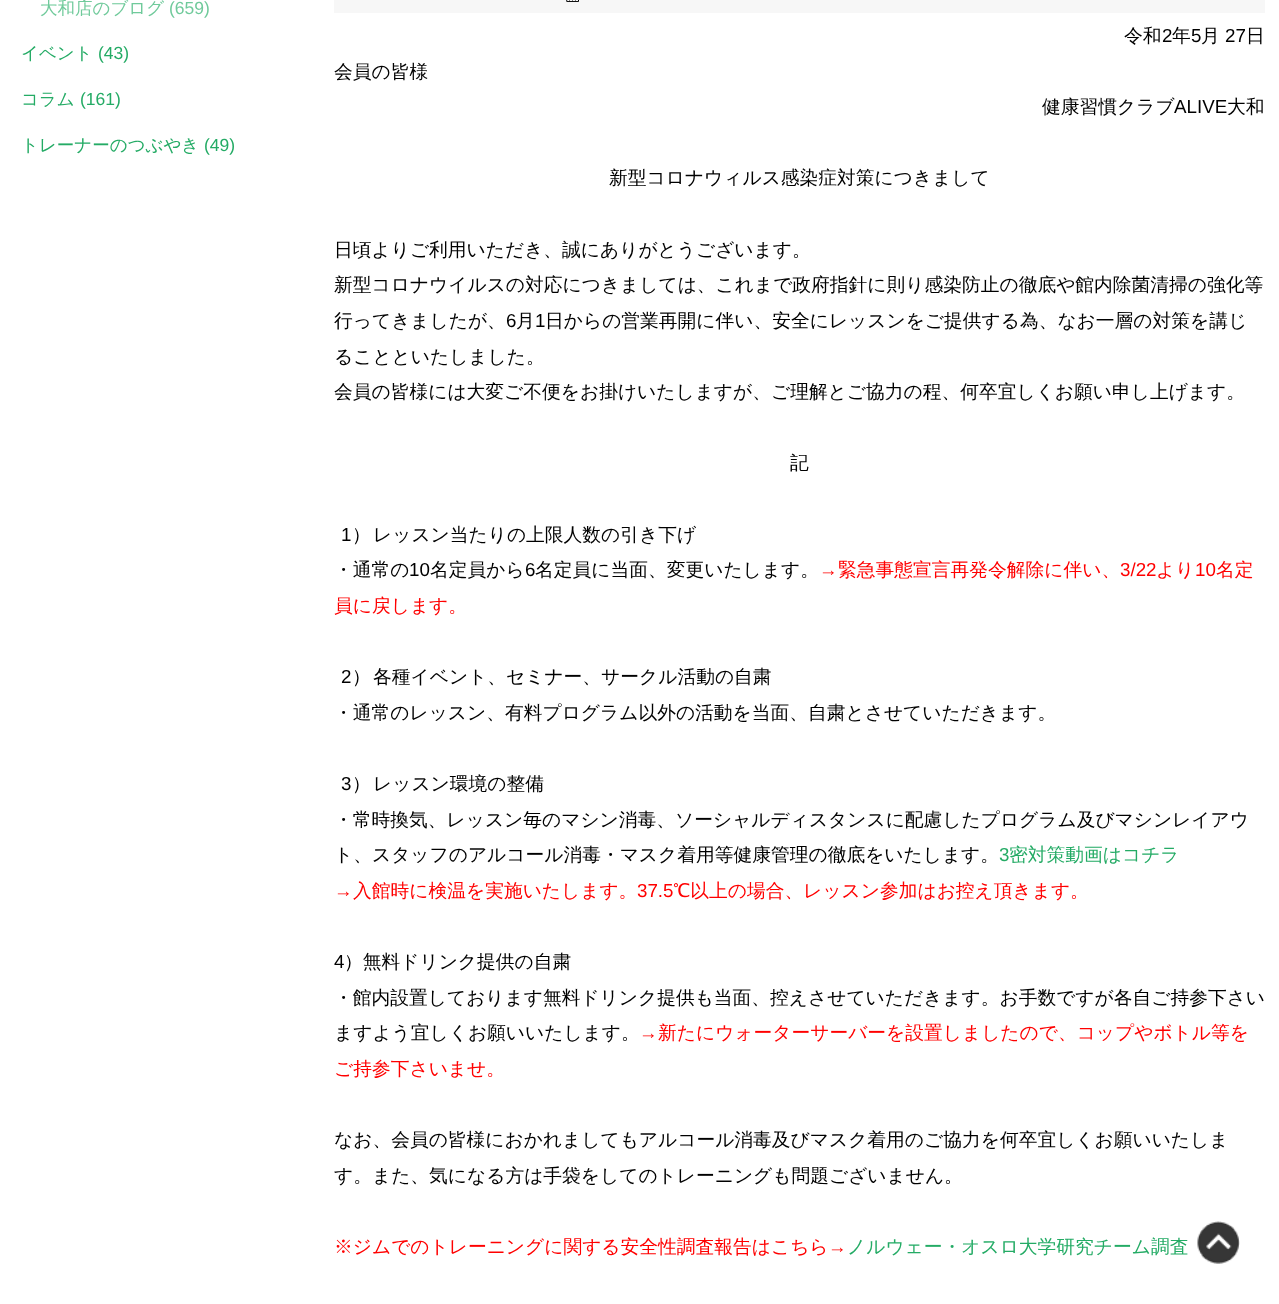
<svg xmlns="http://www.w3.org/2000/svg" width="1279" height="1304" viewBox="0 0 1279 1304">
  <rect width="100%" height="100%" fill="#ffffff"/>
  <text x="40" y="14" font-family="WenQuanYi Zen Hei" font-size="17.5" font-weight="500" fill="#70ca9b">大和店のブログ</text>
  <text x="169" y="14" font-family="Liberation Sans" font-size="17.5" fill="#70ca9b">(659)</text>
  <text x="21" y="59" font-family="WenQuanYi Zen Hei" font-size="17.5" font-weight="500" fill="#24ab65">イベント</text>
  <text x="98" y="59" font-family="Liberation Sans" font-size="17.5" fill="#24ab65">(43)</text>
  <text x="21" y="105" font-family="WenQuanYi Zen Hei" font-size="17.5" font-weight="500" fill="#24ab65">コラム</text>
  <text x="80" y="105" font-family="Liberation Sans" font-size="17.5" fill="#24ab65">(161)</text>
  <text x="21" y="151" font-family="WenQuanYi Zen Hei" font-size="17.5" font-weight="500" fill="#24ab65">トレーナーのつぶやき</text>
  <text x="204" y="151" font-family="Liberation Sans" font-size="17.5" fill="#24ab65">(49)</text>
  <rect x="334" y="0" width="931" height="13" fill="#f7f7f7"/>
  <image x="566" y="0" width="13" height="2" href="img1.png"/>
  <text x="1124" y="42" font-family="WenQuanYi Zen Hei" font-size="18.75" font-weight="500" fill="#000000">令和</text>
  <text x="1162" y="42" font-family="Liberation Sans" font-size="18.75" fill="#000000">2</text>
  <text x="1172" y="42" font-family="WenQuanYi Zen Hei" font-size="18.75" font-weight="500" fill="#000000">年</text>
  <text x="1191" y="42" font-family="Liberation Sans" font-size="18.75" fill="#000000">5</text>
  <text x="1201" y="42" font-family="WenQuanYi Zen Hei" font-size="18.75" font-weight="500" fill="#000000">月</text>
  <text x="1225" y="42" font-family="Liberation Sans" font-size="18.75" fill="#000000">27</text>
  <text x="1246" y="42" font-family="WenQuanYi Zen Hei" font-size="18.75" font-weight="500" fill="#000000">日</text>
  <text x="334" y="78" font-family="WenQuanYi Zen Hei" font-size="18.75" font-weight="500" fill="#000000">会員の皆様</text>
  <text x="1042" y="113" font-family="WenQuanYi Zen Hei" font-size="18.75" font-weight="500" fill="#000000">健康習慣クラブ</text>
  <text x="1174" y="113" font-family="Liberation Sans" font-size="18.75" fill="#000000">ALIVE</text>
  <text x="1227" y="113" font-family="WenQuanYi Zen Hei" font-size="18.75" font-weight="500" fill="#000000">大和</text>
  <text x="609" y="184" font-family="WenQuanYi Zen Hei" font-size="18.75" font-weight="500" fill="#000000">新型コロナウィルス感染症対策につきまして</text>
  <text x="334" y="256" font-family="WenQuanYi Zen Hei" font-size="18.75" font-weight="500" fill="#000000">日頃よりご利用いただき、誠にありがとうございます。</text>
  <text x="334" y="291" font-family="WenQuanYi Zen Hei" font-size="18.75" font-weight="500" fill="#000000">新型コロナウイルスの対応につきましては、これまで政府指針に則り感染防止の徹底や館内除菌清掃の強化等</text>
  <text x="334" y="327" font-family="WenQuanYi Zen Hei" font-size="18.75" font-weight="500" fill="#000000">行ってきましたが、</text>
  <text x="506" y="327" font-family="Liberation Sans" font-size="18.75" fill="#000000">6</text>
  <text x="516" y="327" font-family="WenQuanYi Zen Hei" font-size="18.75" font-weight="500" fill="#000000">月</text>
  <text x="535" y="327" font-family="Liberation Sans" font-size="18.75" fill="#000000">1</text>
  <text x="545" y="327" font-family="WenQuanYi Zen Hei" font-size="18.75" font-weight="500" fill="#000000">日からの営業再開に伴い、安全にレッスンをご提供する為、なお一層の対策を講じ</text>
  <text x="334" y="363" font-family="WenQuanYi Zen Hei" font-size="18.75" font-weight="500" fill="#000000">ることといたしました。</text>
  <text x="334" y="398" font-family="WenQuanYi Zen Hei" font-size="18.75" font-weight="500" fill="#000000">会員の皆様には大変ご不便をお掛けいたしますが、ご理解とご協力の程、何卒宜しくお願い申し上げます。</text>
  <text x="790" y="469" font-family="WenQuanYi Zen Hei" font-size="18.75" font-weight="500" fill="#000000">記</text>
  <text x="341" y="541" font-family="Liberation Sans" font-size="18.75" fill="#000000">1</text>
  <text x="352" y="541" font-family="WenQuanYi Zen Hei" font-size="18.75" font-weight="500" fill="#000000">）</text>
  <text x="373" y="541" font-family="WenQuanYi Zen Hei" font-size="18.75" font-weight="500" fill="#000000">レッスン当たりの上限人数の引き下げ</text>
  <text x="334" y="576" font-family="WenQuanYi Zen Hei" font-size="18.75" font-weight="500" fill="#000000">・通常の</text>
  <text x="409" y="576" font-family="Liberation Sans" font-size="18.75" fill="#000000">10</text>
  <text x="430" y="576" font-family="WenQuanYi Zen Hei" font-size="18.75" font-weight="500" fill="#000000">名定員から</text>
  <text x="525" y="576" font-family="Liberation Sans" font-size="18.75" fill="#000000">6</text>
  <text x="535" y="576" font-family="WenQuanYi Zen Hei" font-size="18.75" font-weight="500" fill="#000000">名定員に当面、変更いたします。</text>
  <text x="819" y="576" font-family="Liberation Sans" font-size="18.75" fill="#ff0000">→</text>
  <text x="838" y="576" font-family="WenQuanYi Zen Hei" font-size="18.75" font-weight="500" fill="#ff0000">緊急事態宣言再発令解除に伴い、</text>
  <text x="1120" y="576" font-family="Liberation Sans" font-size="18.75" fill="#ff0000">3/22</text>
  <text x="1156" y="576" font-family="WenQuanYi Zen Hei" font-size="18.75" font-weight="500" fill="#ff0000">より</text>
  <text x="1195" y="576" font-family="Liberation Sans" font-size="18.75" fill="#ff0000">10</text>
  <text x="1216" y="576" font-family="WenQuanYi Zen Hei" font-size="18.75" font-weight="500" fill="#ff0000">名定</text>
  <text x="334" y="612" font-family="WenQuanYi Zen Hei" font-size="18.75" font-weight="500" fill="#ff0000">員に戻します。</text>
  <text x="341" y="683" font-family="Liberation Sans" font-size="18.75" fill="#000000">2</text>
  <text x="352" y="683" font-family="WenQuanYi Zen Hei" font-size="18.75" font-weight="500" fill="#000000">）</text>
  <text x="373" y="683" font-family="WenQuanYi Zen Hei" font-size="18.75" font-weight="500" fill="#000000">各種イベント、セミナー、サークル活動の自粛</text>
  <text x="334" y="719" font-family="WenQuanYi Zen Hei" font-size="18.75" font-weight="500" fill="#000000">・通常のレッスン、有料プログラム以外の活動を当面、自粛とさせていただきます。</text>
  <text x="341" y="790" font-family="Liberation Sans" font-size="18.75" fill="#000000">3</text>
  <text x="352" y="790" font-family="WenQuanYi Zen Hei" font-size="18.75" font-weight="500" fill="#000000">）</text>
  <text x="373" y="790" font-family="WenQuanYi Zen Hei" font-size="18.75" font-weight="500" fill="#000000">レッスン環境の整備</text>
  <text x="334" y="826" font-family="WenQuanYi Zen Hei" font-size="18.75" font-weight="500" fill="#000000">・常時換気、レッスン毎のマシン消毒、ソーシャルディスタンスに配慮したプログラム及びマシンレイアウ</text>
  <text x="334" y="861" font-family="WenQuanYi Zen Hei" font-size="18.75" font-weight="500" fill="#000000">ト、スタッフのアルコール消毒・マスク着用等健康管理の徹底をいたします。</text>
  <text x="999" y="861" font-family="Liberation Sans" font-size="18.75" fill="#24ab65">3</text>
  <text x="1009" y="861" font-family="WenQuanYi Zen Hei" font-size="18.75" font-weight="500" fill="#24ab65">密対策動画はコチラ</text>
  <text x="334" y="897" font-family="Liberation Sans" font-size="18.75" fill="#ff0000">→</text>
  <text x="353" y="897" font-family="WenQuanYi Zen Hei" font-size="18.75" font-weight="500" fill="#ff0000">入館時に検温を実施いたします。</text>
  <text x="637" y="897" font-family="Liberation Sans" font-size="18.75" fill="#ff0000">37.5</text>
  <text x="673" y="897" font-family="WenQuanYi Zen Hei" font-size="18.75" font-weight="500" fill="#ff0000">℃以上の場合、レッスン参加はお控え頂きます。</text>
  <text x="334" y="968" font-family="Liberation Sans" font-size="18.75" fill="#000000">4</text>
  <text x="344" y="968" font-family="WenQuanYi Zen Hei" font-size="18.75" font-weight="500" fill="#000000">）無料ドリンク提供の自粛</text>
  <text x="334" y="1004" font-family="WenQuanYi Zen Hei" font-size="18.75" font-weight="500" fill="#000000">・館内設置しております無料ドリンク提供も当面、控えさせていただきます。お手数ですが各自ご持参下さい</text>
  <text x="334" y="1039" font-family="WenQuanYi Zen Hei" font-size="18.75" font-weight="500" fill="#000000">ますよう宜しくお願いいたします。</text>
  <text x="639" y="1039" font-family="Liberation Sans" font-size="18.75" fill="#ff0000">→</text>
  <text x="658" y="1039" font-family="WenQuanYi Zen Hei" font-size="18.75" font-weight="500" fill="#ff0000">新たにウォーターサーバーを設置しましたので、コップやボトル等を</text>
  <text x="334" y="1075" font-family="WenQuanYi Zen Hei" font-size="18.75" font-weight="500" fill="#ff0000">ご持参下さいませ。</text>
  <text x="334" y="1146" font-family="WenQuanYi Zen Hei" font-size="18.75" font-weight="500" fill="#000000">なお、会員の皆様におかれましてもアルコール消毒及びマスク着用のご協力を何卒宜しくお願いいたしま</text>
  <text x="334" y="1182" font-family="WenQuanYi Zen Hei" font-size="18.75" font-weight="500" fill="#000000">す。また、気になる方は手袋をしてのトレーニングも問題ございません。</text>
  <text x="334" y="1253" font-family="WenQuanYi Zen Hei" font-size="18.75" font-weight="500" fill="#ff0000">※ジムでのトレーニングに関する安全性調査報告はこちら</text>
  <text x="828" y="1253" font-family="Liberation Sans" font-size="18.75" fill="#ff0000">→</text>
  <text x="847" y="1253" font-family="WenQuanYi Zen Hei" font-size="18.75" font-weight="500" fill="#24ab65">ノルウェー・オスロ大学研究チーム調査</text>
  <image x="1197" y="1221" width="43" height="43" href="img2.png"/>
</svg>
